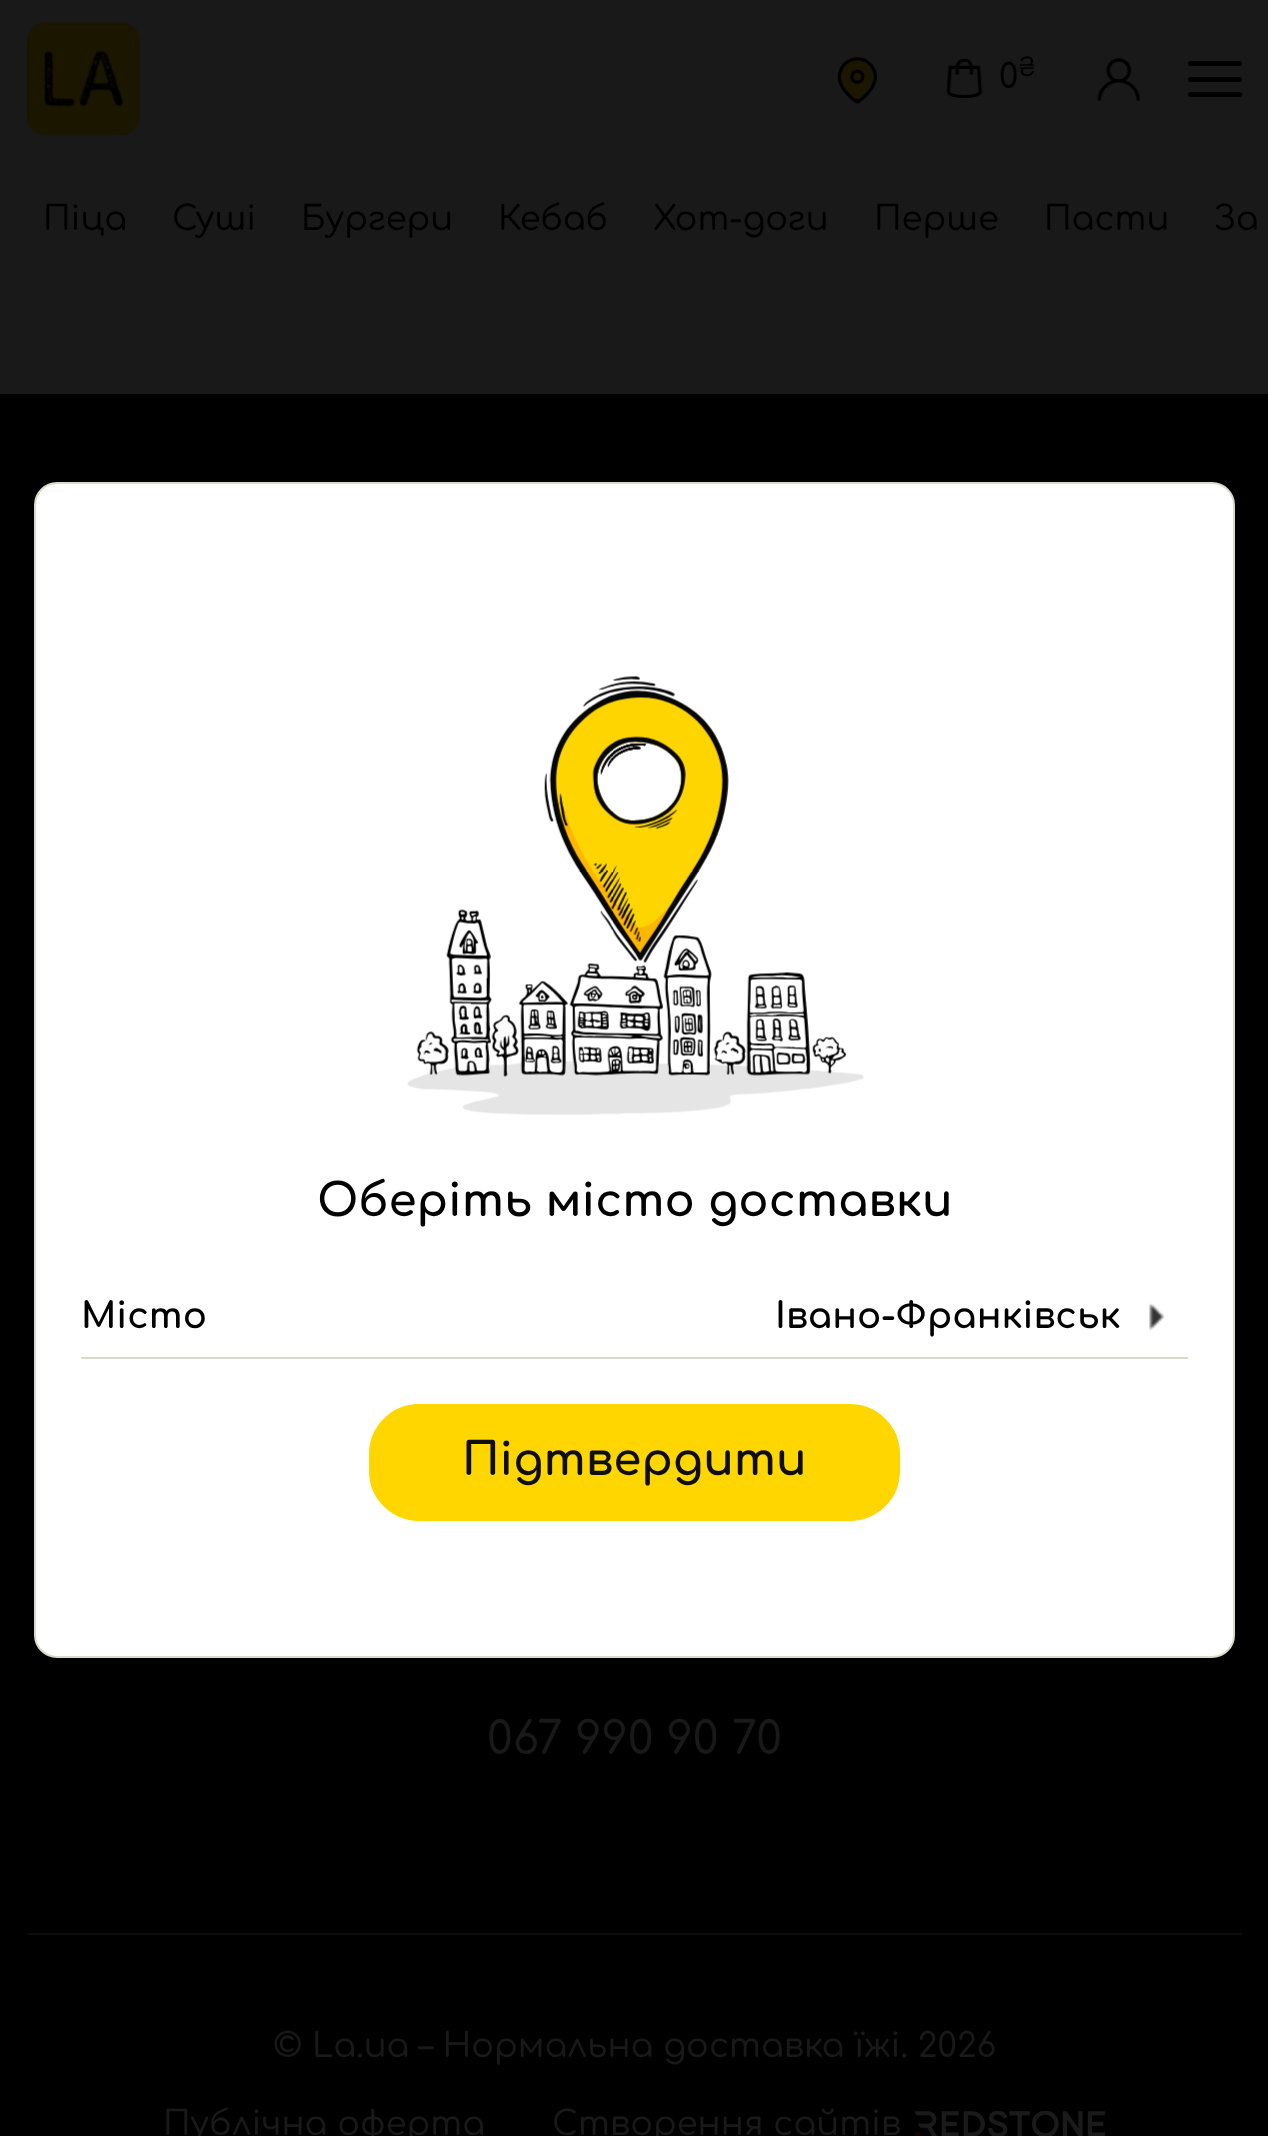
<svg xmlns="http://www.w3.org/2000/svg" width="1268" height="2136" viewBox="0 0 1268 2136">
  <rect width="100%" height="100%" fill="#191919"/>
  <image x="27" y="22" width="113" height="113" href="img1.png"/>
  <image x="837" y="57" width="40" height="47" href="img2.png"/>
  <image x="946" y="58" width="37" height="40" href="img3.png"/>
  <text x="999" y="88" font-family="Comfortaa" font-size="33.75" font-weight="500" fill="#000000">0</text>
  <text x="1018" y="76" font-family="Comfortaa" font-size="25" font-weight="500" fill="#000000">₴</text>
  <image x="1097" y="58" width="44" height="43" href="img4.png"/>
  <rect x="1188" y="61" width="54" height="5" rx="2.5" fill="#000000"/>
  <rect x="1188" y="77" width="54" height="5" rx="2.5" fill="#000000"/>
  <rect x="1188" y="92" width="54" height="5" rx="2.5" fill="#000000"/>
  <text x="43" y="230" font-family="Comfortaa" font-size="33.75" font-weight="500" fill="#000000">Піца</text>
  <text x="172" y="230" font-family="Comfortaa" font-size="33.75" font-weight="500" fill="#000000">Суші</text>
  <text x="301" y="230" font-family="Comfortaa" font-size="33.75" font-weight="500" fill="#000000">Бургери</text>
  <text x="498" y="230" font-family="Comfortaa" font-size="33.75" font-weight="500" fill="#000000">Кебаб</text>
  <text x="653" y="230" font-family="Comfortaa" font-size="33.75" font-weight="500" fill="#000000">Хот-доги</text>
  <text x="874" y="230" font-family="Comfortaa" font-size="33.75" font-weight="500" fill="#000000">Перше</text>
  <text x="1044" y="230" font-family="Comfortaa" font-size="33.75" font-weight="500" fill="#000000">Пасти</text>
  <text x="1214" y="230" font-family="Comfortaa" font-size="33.75" font-weight="500" fill="#000000">За</text>
  <rect x="0" y="394" width="1268" height="1742" fill="#000000"/>
  <text x="487" y="1754" font-family="Comfortaa" font-size="45" font-weight="500" fill="#191919">067 990 90 70</text>
  <rect x="27" y="1933" width="1215" height="2" fill="#0d0d0d"/>
  <text x="273" y="2057" font-family="Comfortaa" font-size="33.75" font-weight="500" fill="#191919">© La.ua – Нормальна доставка їжі. 2026</text>
  <text x="163" y="2135" font-family="Comfortaa" font-size="33.75" font-weight="500" fill="#191919">Публічна оферта</text>
  <text x="552" y="2135" font-family="Comfortaa" font-size="33.75" font-weight="500" fill="#191919">Створення сайтів</text>
  <image x="914" y="2111" width="191" height="25" href="img5.png"/>
  <rect x="35" y="483" width="1199" height="1174" rx="22" fill="#ffffff" stroke="#dcd9c8" stroke-width="2"/>
  <image x="407" y="676" width="457" height="439" href="img6.png"/>
  <text x="317" y="1216" font-family="Comfortaa" font-size="45" font-weight="bold" fill="#000000">Оберіть місто доставки</text>
  <rect x="81" y="1357" width="1107" height="2" fill="#dcd9c8"/>
  <text x="81" y="1328" font-family="Comfortaa" font-size="36" font-weight="bold" fill="#000000">Місто</text>
  <text x="775" y="1328" font-family="Comfortaa" font-size="36" font-weight="bold" fill="#000000">Івано-Франківськ</text>
  <image x="1149" y="1303" width="16" height="28" href="img7.png"/>
  <rect x="370" y="1405" width="529" height="115" rx="49" fill="#ffd600" stroke="#ffd600" stroke-width="2"/>
  <text x="462" y="1475" font-family="Comfortaa" font-size="45" font-weight="bold" fill="#0e0e0e">Підтвердити</text>
</svg>
